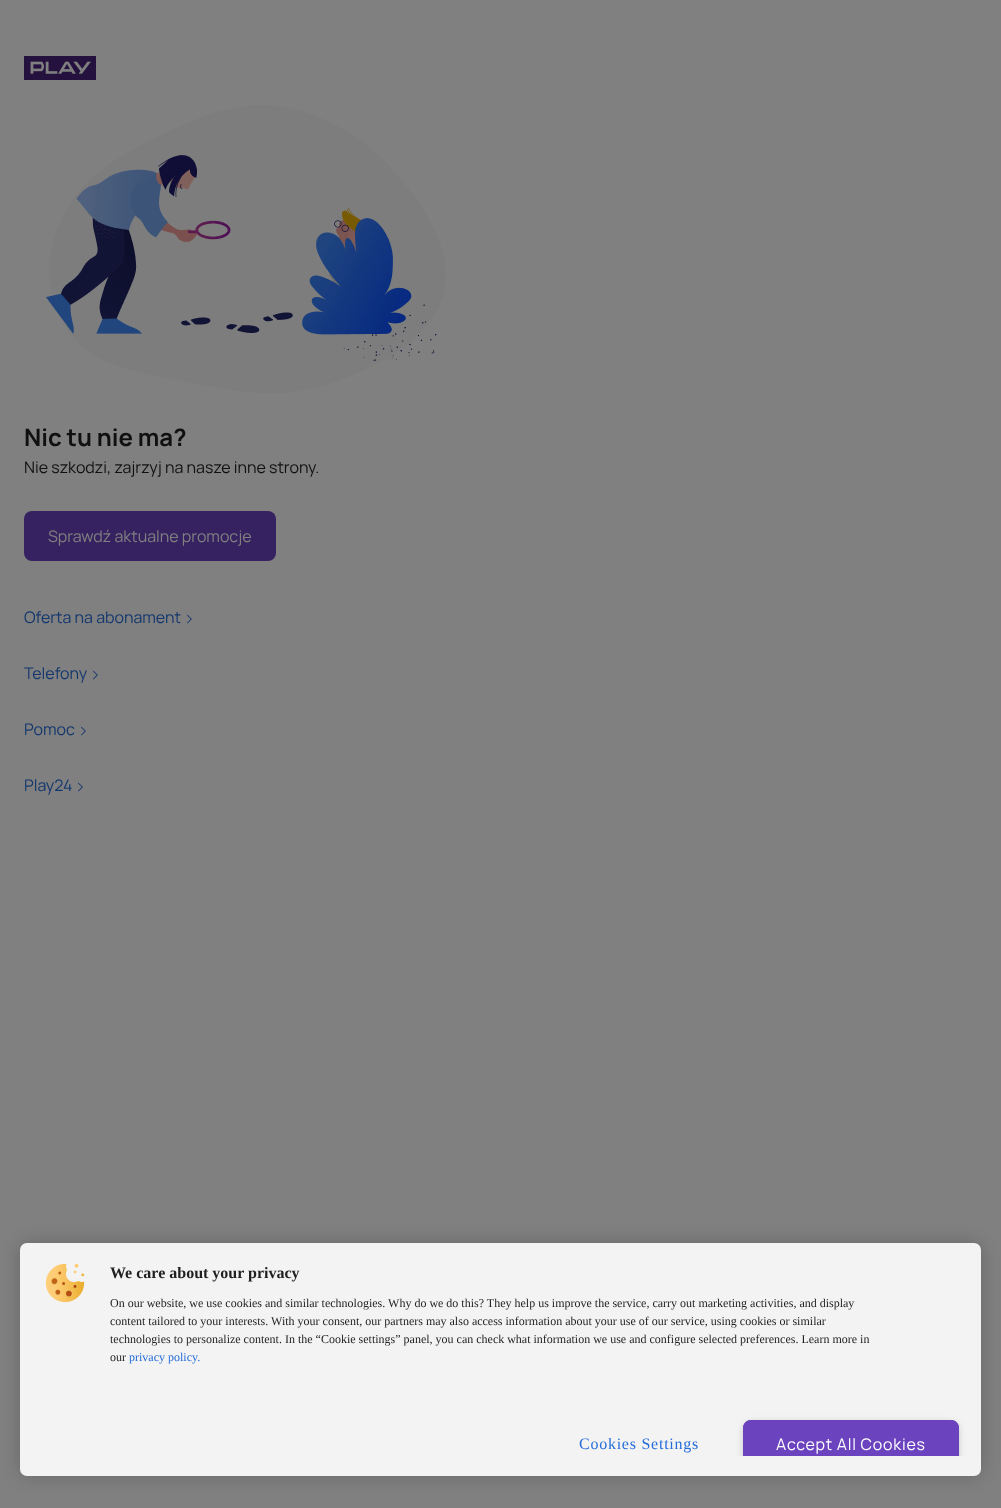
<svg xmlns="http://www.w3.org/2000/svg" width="1001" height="1508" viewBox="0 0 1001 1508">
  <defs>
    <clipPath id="clip1"><path d="M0 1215H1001V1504H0ZM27 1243H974C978 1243 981 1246 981 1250V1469C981 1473 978 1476 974 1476H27C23 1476 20 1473 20 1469V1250C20 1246 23 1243 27 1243Z" clip-rule="evenodd"/></clipPath>
    <filter id="blur1" x="-50%" y="-200%" width="200%" height="500%"><feGaussianBlur stdDeviation="9"/></filter>
    <clipPath id="clip2"><rect x="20" y="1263" width="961" height="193"/></clipPath>
    <filter id="blur2" x="-50%" y="-200%" width="200%" height="500%"><feGaussianBlur stdDeviation="5"/></filter>
    <clipPath id="clip3"><rect x="20" y="1263" width="961" height="193"/></clipPath>
  </defs>
  <rect width="100%" height="100%" fill="#808080"/>
  <image x="24" y="56" width="72" height="24" href="img1.png"/>
  <image x="46" y="105" width="400" height="288" href="img2.png"/>
  <text x="24" y="446" font-family="Manrope" font-size="24" font-weight="bold" fill="#101010">Nic tu nie ma?</text>
  <text x="24" y="473" font-family="Manrope" font-size="16" fill="#101010">Nie szkodzi, zajrzyj na nasze inne strony.</text>
  <rect x="24" y="511" width="252" height="50" rx="8" fill="#362260"/>
  <text x="48" y="542" font-family="Manrope" font-size="16" fill="#808080">Sprawdź aktualne promocje</text>
  <text x="24" y="623" font-family="Manrope" font-size="16" fill="#13376d">Oferta na abonament</text>
  <image x="187" y="614" width="5" height="10" href="img3.png"/>
  <text x="24" y="679" font-family="Manrope" font-size="16" fill="#13376d">Telefony</text>
  <image x="93" y="670" width="5" height="10" href="img3.png"/>
  <text x="24" y="735" font-family="Manrope" font-size="16" fill="#13376d">Pomoc</text>
  <image x="81" y="726" width="5" height="10" href="img3.png"/>
  <text x="24" y="791" font-family="Manrope" font-size="16" fill="#13376d">Play24</text>
  <image x="78" y="782" width="5" height="10" href="img3.png"/>
  <g clip-path="url(#clip1)">
    <rect x="20" y="1243" width="961" height="233" rx="7" fill="#000000" fill-opacity="0.2" filter="url(#blur1)"/>
  </g>
  <rect x="20" y="1243" width="961" height="233" rx="7" fill="#ffffff" fill-opacity="0.9"/>
  <image x="45" y="1263" width="40" height="40" href="img4.png"/>
  <text x="110" y="1278" font-family="Liberation Serif" font-size="16" font-weight="bold" fill="#1f1f1f">We care about your privacy</text>
  <text x="110" y="1307" font-family="Liberation Serif" font-size="12" fill="#1f1f1f">On our website, we use cookies and similar technologies. Why do we do this? They help us improve the service, carry out marketing activities, and display</text>
  <text x="110" y="1325" font-family="Liberation Serif" font-size="12" fill="#1f1f1f">content tailored to your interests. With your consent, our partners may also access information about your use of our service, using cookies or similar</text>
  <text x="110" y="1343" font-family="Liberation Serif" font-size="12" fill="#1f1f1f">technologies to personalize content. In the “Cookie settings” panel, you can check what information we use and configure selected preferences. Learn more in</text>
  <text x="110" y="1361" font-family="Liberation Serif" font-size="12" fill="#1f1f1f">our</text>
  <text x="129" y="1361" font-family="Liberation Serif" font-size="12" fill="#266dd9">privacy policy.</text>
  <text x="579" y="1449" font-family="Liberation Serif" font-size="16" letter-spacing="0.75" fill="#266dd9">Cookies Settings</text>
  <g clip-path="url(#clip2)">
    <rect x="746" y="1425" width="210" height="42" rx="5" fill="#999999" filter="url(#blur2)"/>
  </g>
  <path d="M751 1420H951C955.5 1420 959 1423.5 959 1428V1456H743V1428C743 1423.5 746.5 1420 751 1420Z" fill="#6c43bf"/>
  <g clip-path="url(#clip3)">
    <rect x="743.5" y="1420.5" width="215" height="47" rx="7.5" fill="none" stroke="#6c43bf"/>
  </g>
  <text x="776" y="1450" font-family="Manrope" font-size="16" letter-spacing="0.75" fill="#ffffff">Accept All Cookies</text>
</svg>
